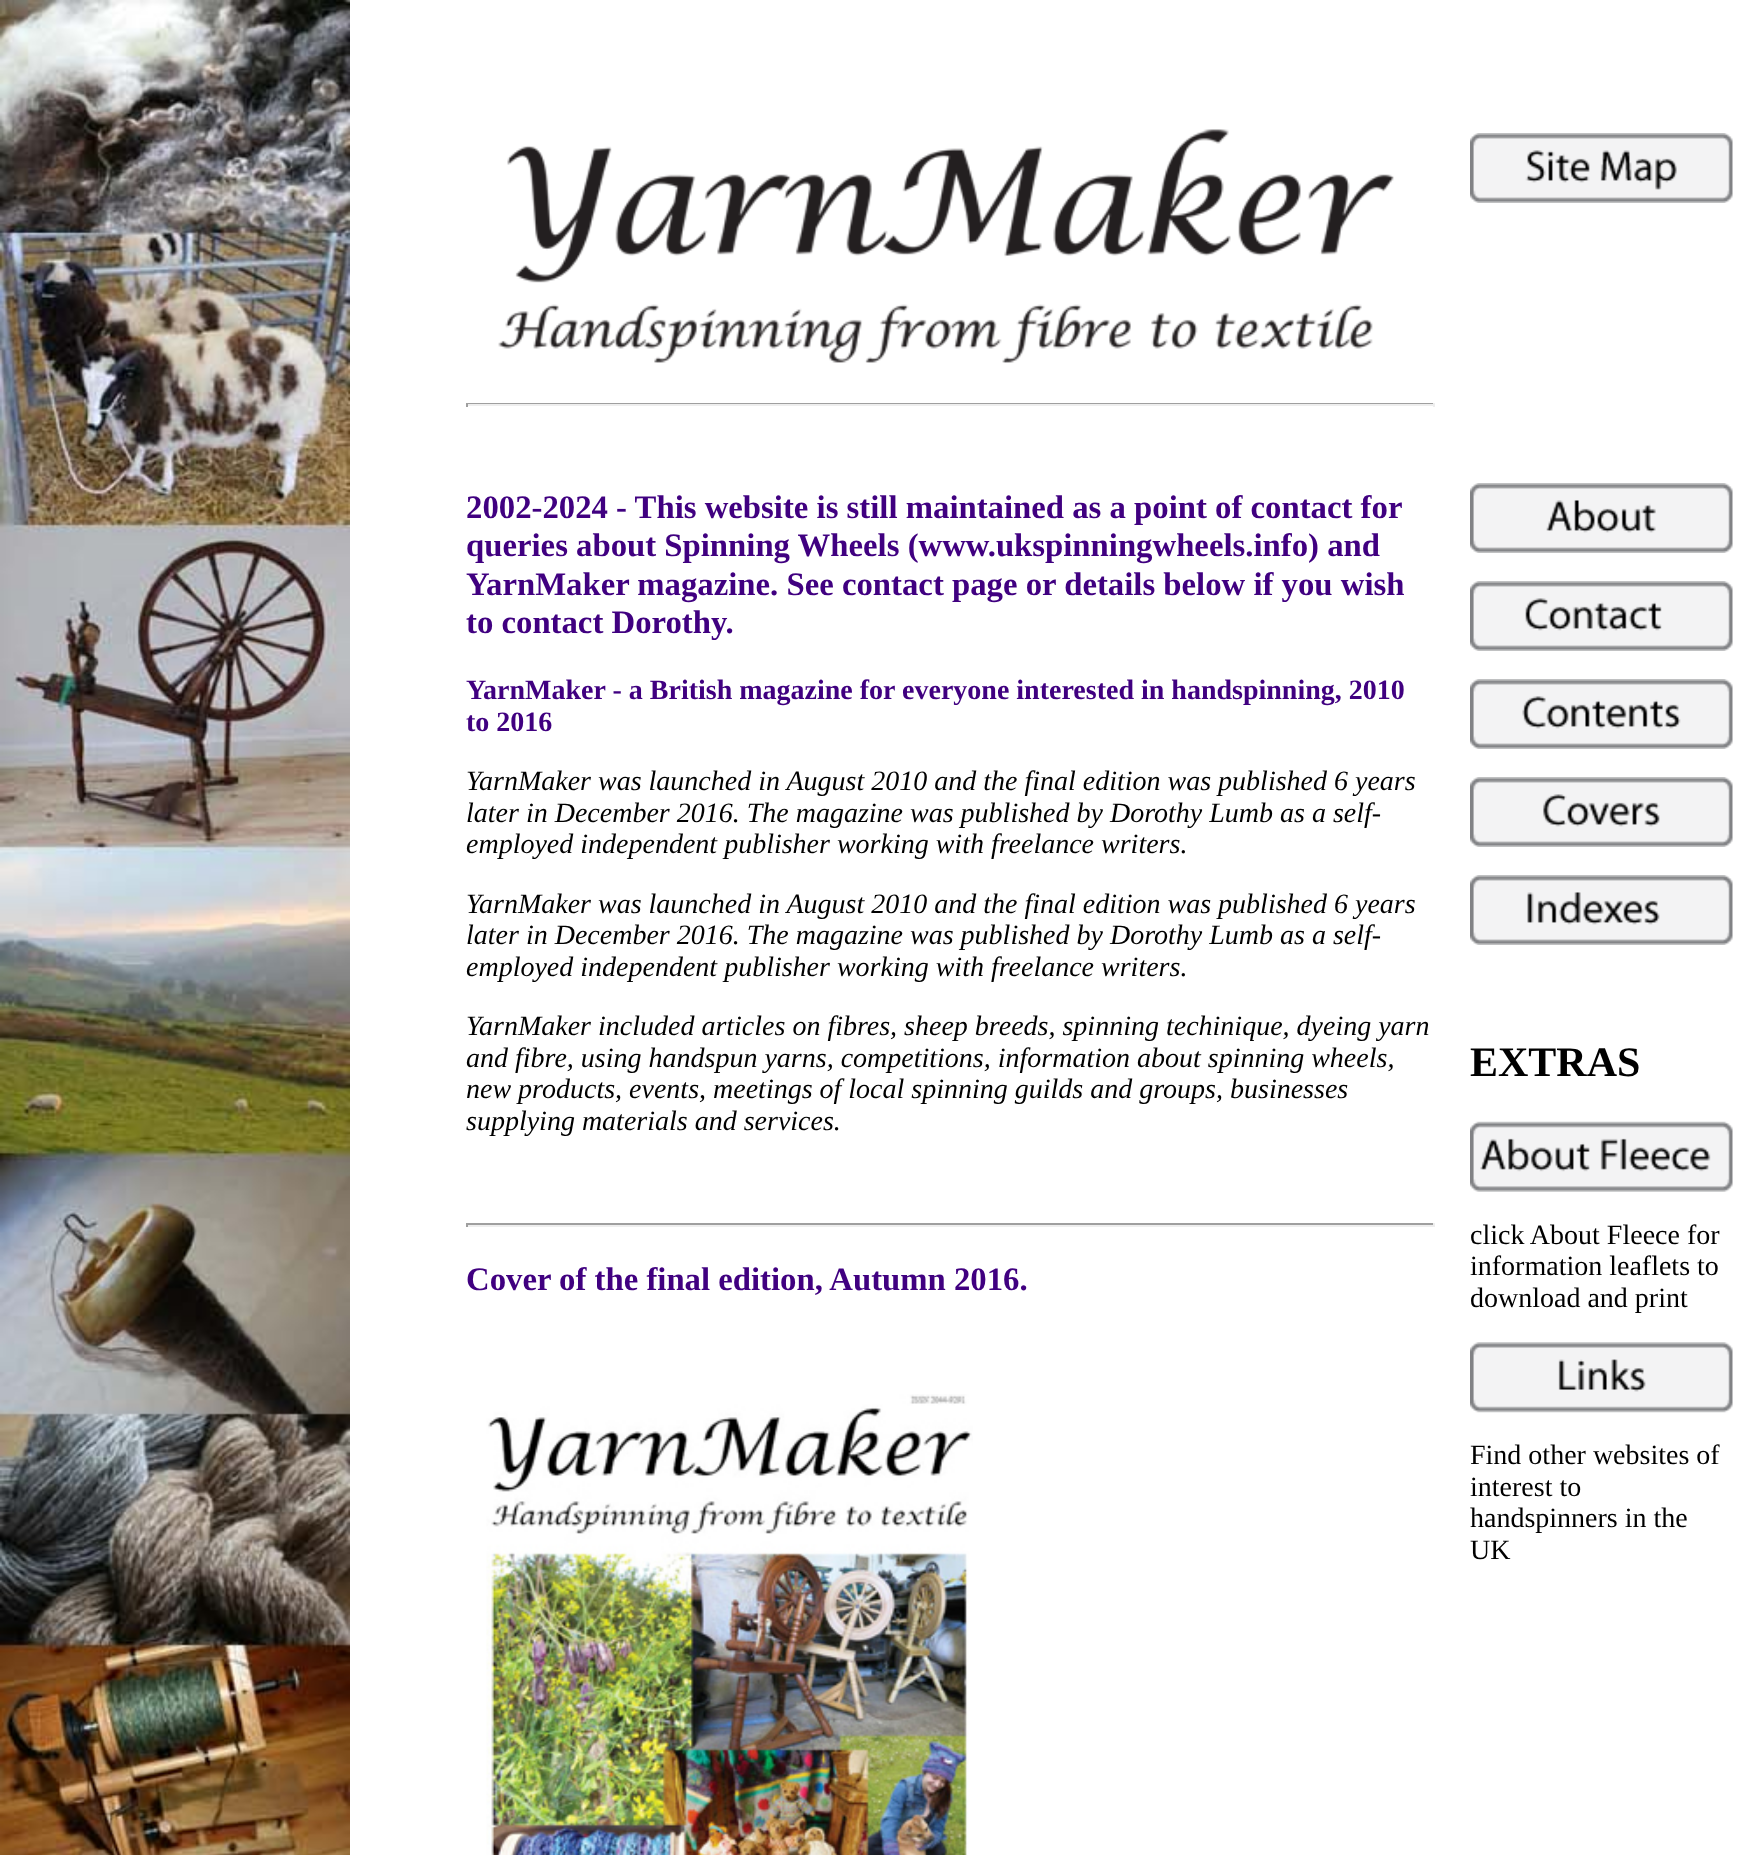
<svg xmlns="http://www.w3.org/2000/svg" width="1764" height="1855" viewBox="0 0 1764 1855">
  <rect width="100%" height="100%" fill="#ffffff"/>
  <image x="0" y="0" width="350" height="1855" href="img1.png"/>
  <image x="498" y="129" width="896" height="234" href="img2.png"/>
  <rect x="466" y="403" width="969" height="1" fill="#9f9f9f"/>
  <rect x="1433" y="403" width="2" height="4" fill="#eeeeee"/>
  <rect x="466" y="404" width="969" height="2" fill="#eeeeee"/>
  <rect x="466" y="403" width="2" height="4" fill="#9f9f9f"/>
  <image x="1470" y="133" width="263" height="70" href="img3.png"/>
  <text x="466" y="518" font-family="Liberation Serif" font-size="32.75" font-weight="bold" fill="#400080">2002-2024 - This website is still maintained as a point of contact for</text>
  <text x="466" y="556" font-family="Liberation Serif" font-size="32.75" font-weight="bold" fill="#400080">queries about Spinning Wheels (www.ukspinningwheels.info) and</text>
  <text x="466" y="595" font-family="Liberation Serif" font-size="32.75" font-weight="bold" fill="#400080">YarnMaker magazine. See contact page or details below if you wish</text>
  <text x="466" y="633" font-family="Liberation Serif" font-size="32.75" font-weight="bold" fill="#400080">to contact Dorothy.</text>
  <text x="466" y="699" font-family="Liberation Serif" font-size="28" font-weight="bold" fill="#400080">YarnMaker - a British magazine for everyone interested in handspinning, 2010</text>
  <text x="466" y="731" font-family="Liberation Serif" font-size="28" font-weight="bold" fill="#400080">to 2016</text>
  <text x="466" y="790" font-family="Liberation Serif" font-size="28" font-style="italic" fill="#000000">YarnMaker was launched in August 2010 and the final edition was published 6 years</text>
  <text x="466" y="822" font-family="Liberation Serif" font-size="28" font-style="italic" fill="#000000">later in December 2016. The magazine was published by Dorothy Lumb as a self-</text>
  <text x="466" y="853" font-family="Liberation Serif" font-size="28" font-style="italic" fill="#000000">employed independent publisher working with freelance writers.</text>
  <text x="466" y="913" font-family="Liberation Serif" font-size="28" font-style="italic" fill="#000000">YarnMaker was launched in August 2010 and the final edition was published 6 years</text>
  <text x="466" y="944" font-family="Liberation Serif" font-size="28" font-style="italic" fill="#000000">later in December 2016. The magazine was published by Dorothy Lumb as a self-</text>
  <text x="466" y="976" font-family="Liberation Serif" font-size="28" font-style="italic" fill="#000000">employed independent publisher working with freelance writers.</text>
  <text x="466" y="1035" font-family="Liberation Serif" font-size="28" font-style="italic" fill="#000000">YarnMaker included articles on fibres, sheep breeds, spinning techinique, dyeing yarn</text>
  <text x="466" y="1067" font-family="Liberation Serif" font-size="28" font-style="italic" fill="#000000">and fibre, using handspun yarns, competitions, information about spinning wheels,</text>
  <text x="466" y="1098" font-family="Liberation Serif" font-size="28" font-style="italic" fill="#000000">new products, events, meetings of local spinning guilds and groups, businesses</text>
  <text x="466" y="1130" font-family="Liberation Serif" font-size="28" font-style="italic" fill="#000000">supplying materials and services.</text>
  <rect x="466" y="1223" width="969" height="2" fill="#9f9f9f"/>
  <rect x="1433" y="1223" width="2" height="4" fill="#eeeeee"/>
  <rect x="466" y="1225" width="969" height="2" fill="#eeeeee"/>
  <rect x="466" y="1223" width="2" height="4" fill="#9f9f9f"/>
  <text x="466" y="1290" font-family="Liberation Serif" font-size="32.75" font-weight="bold" fill="#400080">Cover of the final edition, Autumn 2016.</text>
  <image x="486" y="1394" width="487" height="461" href="img4.png"/>
  <image x="1470" y="483" width="263" height="70" href="img5.png"/>
  <image x="1470" y="581" width="263" height="70" href="img6.png"/>
  <image x="1470" y="679" width="263" height="70" href="img7.png"/>
  <image x="1470" y="777" width="263" height="70" href="img8.png"/>
  <image x="1470" y="875" width="263" height="70" href="img9.png"/>
  <text x="1470" y="1076" font-family="Liberation Serif" font-size="42" font-weight="bold" fill="#000000">EXTRAS</text>
  <image x="1470" y="1121" width="263" height="71" href="img10.png"/>
  <text x="1470" y="1244" font-family="Liberation Serif" font-size="28" fill="#000000">click About Fleece for</text>
  <text x="1470" y="1275" font-family="Liberation Serif" font-size="28" fill="#000000">information leaflets to</text>
  <text x="1470" y="1307" font-family="Liberation Serif" font-size="28" fill="#000000">download and print</text>
  <image x="1470" y="1342" width="263" height="71" href="img11.png"/>
  <text x="1470" y="1464" font-family="Liberation Serif" font-size="28" fill="#000000">Find other websites of</text>
  <text x="1470" y="1496" font-family="Liberation Serif" font-size="28" fill="#000000">interest to</text>
  <text x="1470" y="1527" font-family="Liberation Serif" font-size="28" fill="#000000">handspinners in the</text>
  <text x="1470" y="1559" font-family="Liberation Serif" font-size="28" fill="#000000">UK</text>
</svg>
